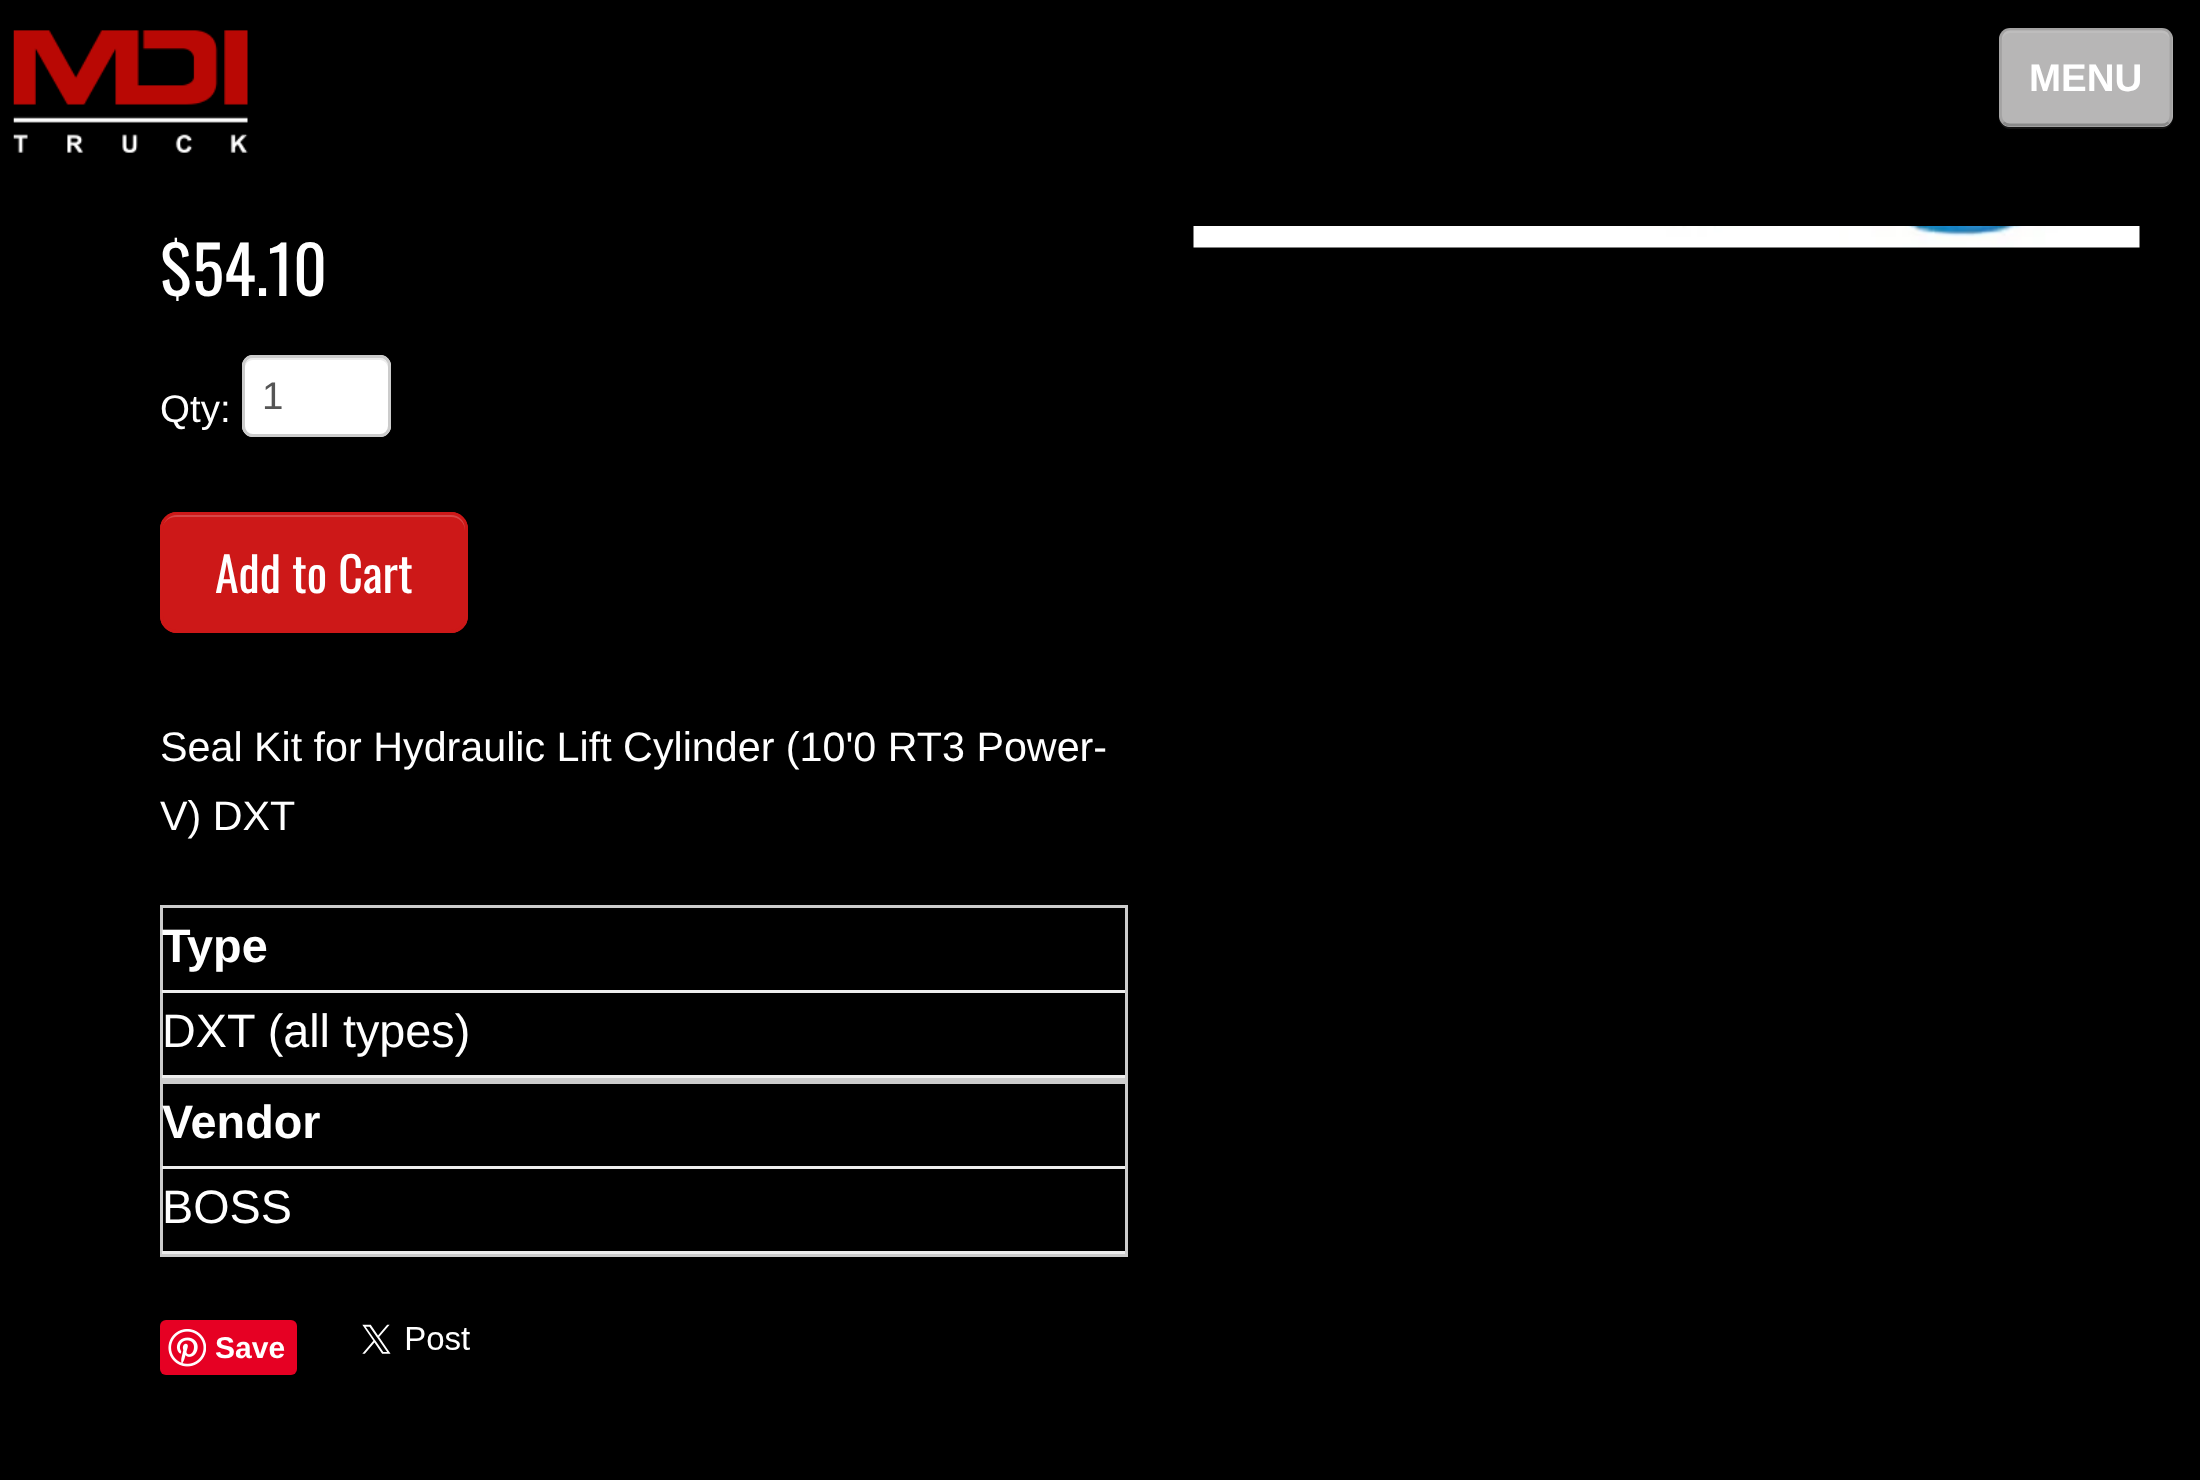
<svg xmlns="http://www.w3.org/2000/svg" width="2200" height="1480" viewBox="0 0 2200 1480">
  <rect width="100%" height="100%" fill="#000000"/>
  <image x="13" y="30" width="235" height="123" href="img1.png"/>
  <path d="M1999 39V118C1999 124 2004 129 2010 129H2162C2168 129 2173 124 2173 118V41L2172 38V116C2172 122 2168 126 2162 126H2010C2004 126 1999 122 1999 116Z" fill="#131313"/>
  <rect x="1999" y="28" width="174" height="99" rx="11" fill="#b7b6b6"/>
  <path d="M2010 33H2162C2166 33 2170 37 2170 41V38C2170 34 2166 30 2162 30H2010C2006 30 2002 34 2002 38V41C2002 37 2006 33 2010 33Z" fill="#bebdbd"/>
  <path d="M2168.5 122.5C2166.5 124 2164 125 2161.5 125H2010C2007.5 125 2005 124 2003.5 122.5" fill="none" stroke="#898989" stroke-width="2.8"/>
  <path d="M2003.5 122.5C2001.5 120.5 2000.5 118 2000.5 115.5V38.5C2000.5 36 2001.5 33.5 2003.5 31.5C2005 30 2007.5 29 2010 29H2161.5C2164 29 2166.5 30 2168.5 31.5C2170 33.5 2171 36 2171 38.5V115.5C2171 118 2170 120.5 2168.5 122.5" fill="none" stroke="#000000" stroke-opacity="0.1" stroke-width="2.8"/>
  <text x="2029" y="91" font-family="Liberation Sans" font-size="38.5" font-weight="bold" fill="#ffffff">MENU</text>
  <text x="160" y="296" font-family="Oswald" font-size="66" fill="#ffffff">$54.10</text>
  <text x="160" y="422" font-family="Liberation Sans" font-size="38.5" fill="#ffffff">Qty:</text>
  <rect x="242" y="355" width="149" height="82" rx="11" fill="#ffffff"/>
  <path d="M253 360H380C384 360 388 364 388 368V366C388 362 384 358 380 358H253C249 358 245 362 245 366V368C245 364 248 360 253 360Z" fill="#ececec"/>
  <rect x="243.5" y="356.5" width="146" height="79" rx="9.5" fill="none" stroke="#cccccc" stroke-width="3"/>
  <text x="262" y="409" font-family="Liberation Sans" font-size="38.5" fill="#555555">1</text>
  <rect x="160" y="512" width="308" height="121" rx="17" fill="#cd1818"/>
  <path d="M176 517H451C459 517 465 523 465 531V528C465 520 459 514 451 514H176C168 514 162 520 162 528V531C162 523 168 517 176 517Z" fill="#d74646"/>
  <rect x="161.5" y="513.5" width="305" height="118" rx="15.5" fill="none" stroke="#cd1818" stroke-width="3"/>
  <text x="215" y="593" font-family="Oswald" font-size="48" fill="#ffffff">Add to Cart</text>
  <text x="160" y="761" font-family="Liberation Sans" font-size="41.25" fill="#ffffff">Seal Kit for Hydraulic Lift Cylinder (10'0 RT3 Power-</text>
  <text x="160" y="830" font-family="Liberation Sans" font-size="41.25" fill="#ffffff">V) DXT</text>
  <rect x="161.5" y="906.5" width="965" height="173" fill="none" stroke="#cccccc" stroke-width="3"/>
  <rect x="162" y="990" width="963" height="3" fill="#eeeeee"/>
  <text x="162" y="962" font-family="Liberation Sans" font-size="46.75" font-weight="bold" fill="#ffffff">Type</text>
  <rect x="162" y="1075" width="963" height="3" fill="#eeeeee"/>
  <text x="162" y="1047" font-family="Liberation Sans" font-size="46.75" fill="#ffffff">DXT (all types)</text>
  <rect x="161.5" y="1082.5" width="965" height="173" fill="none" stroke="#cccccc" stroke-width="3"/>
  <rect x="162" y="1166" width="963" height="3" fill="#eeeeee"/>
  <text x="162" y="1138" font-family="Liberation Sans" font-size="46.75" font-weight="bold" fill="#ffffff">Vendor</text>
  <rect x="162" y="1251" width="963" height="3" fill="#eeeeee"/>
  <text x="162" y="1223" font-family="Liberation Sans" font-size="46.75" fill="#ffffff">BOSS</text>
  <rect x="160" y="1320" width="137" height="55" rx="6" fill="#e60023"/>
  <image x="168" y="1329" width="38" height="38" href="img2.png"/>
  <text x="215" y="1358" font-family="Liberation Sans" font-size="30" font-weight="bold" fill="#ffffff">Save</text>
  <image x="362" y="1324" width="108" height="30" href="img3.png"/>
  <image x="1193" y="226" width="947" height="22" href="img4.png"/>
</svg>
